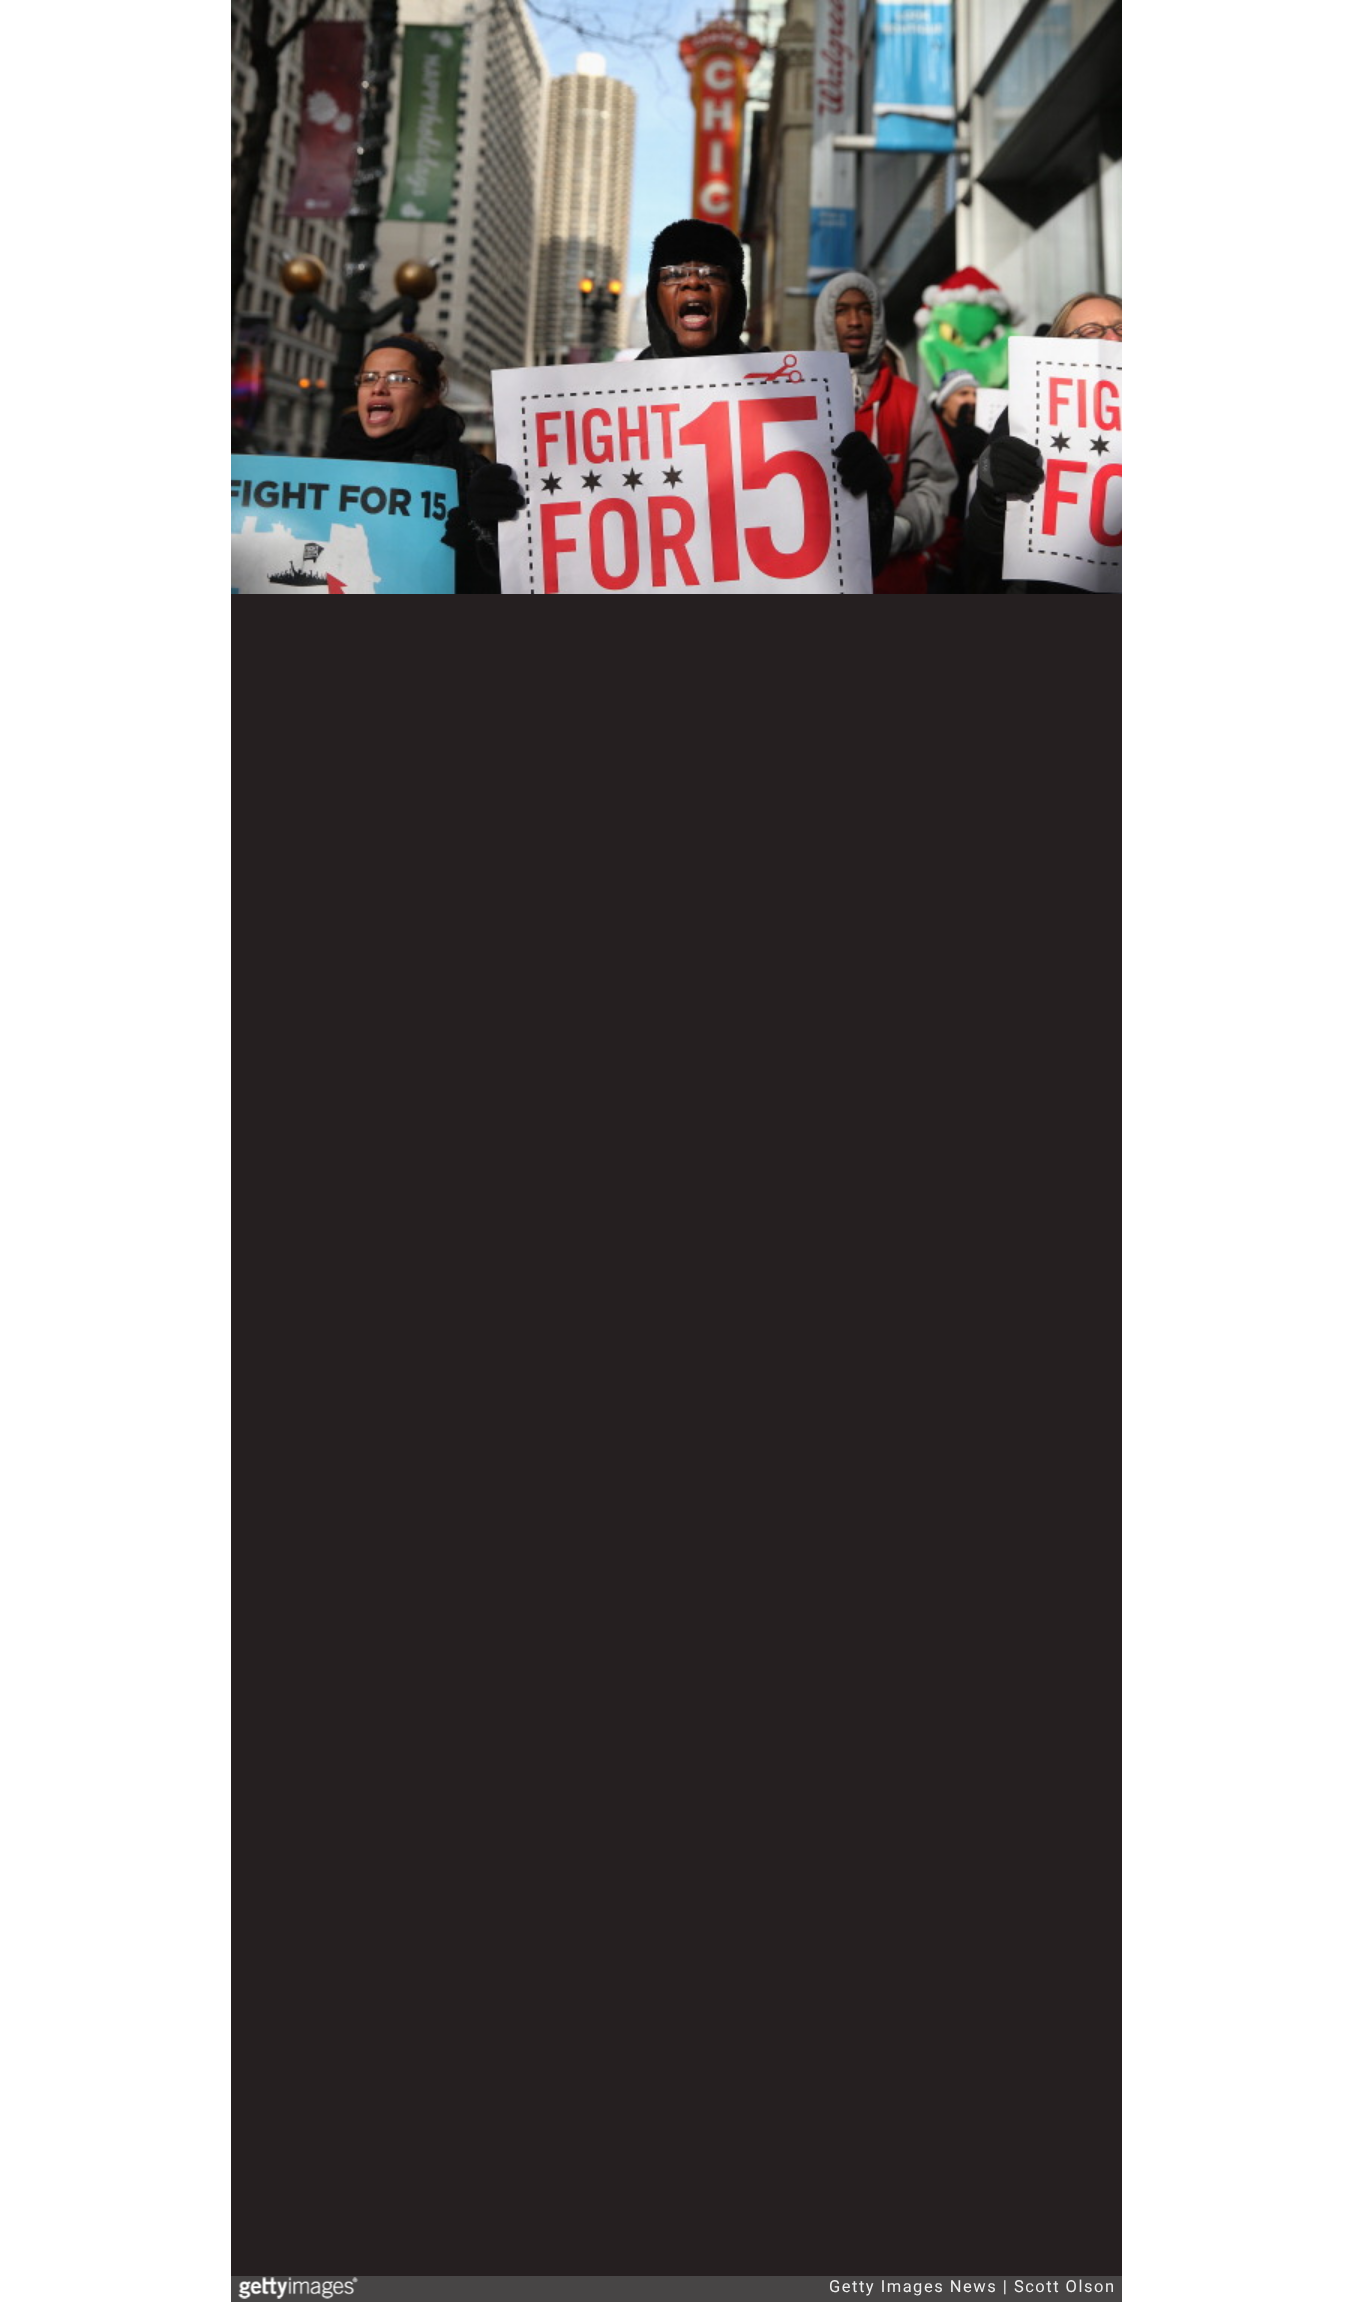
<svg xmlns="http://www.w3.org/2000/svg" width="1351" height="2302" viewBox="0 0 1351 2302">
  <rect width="100%" height="100%" fill="#ffffff"/>
  <rect x="231" y="594" width="891" height="1682" fill="#251f20"/>
  <image x="231" y="0" width="891" height="594" href="img1.png"/>
  <rect x="231" y="2276" width="891" height="26" fill="#474545"/>
  <image x="238" y="2277" width="121" height="22" href="img2.png"/>
  <text x="829" y="2292" font-family="Roboto" font-size="16.5" letter-spacing="1.5" fill="#eeeeee">Getty Images News | Scott Olson</text>
</svg>
